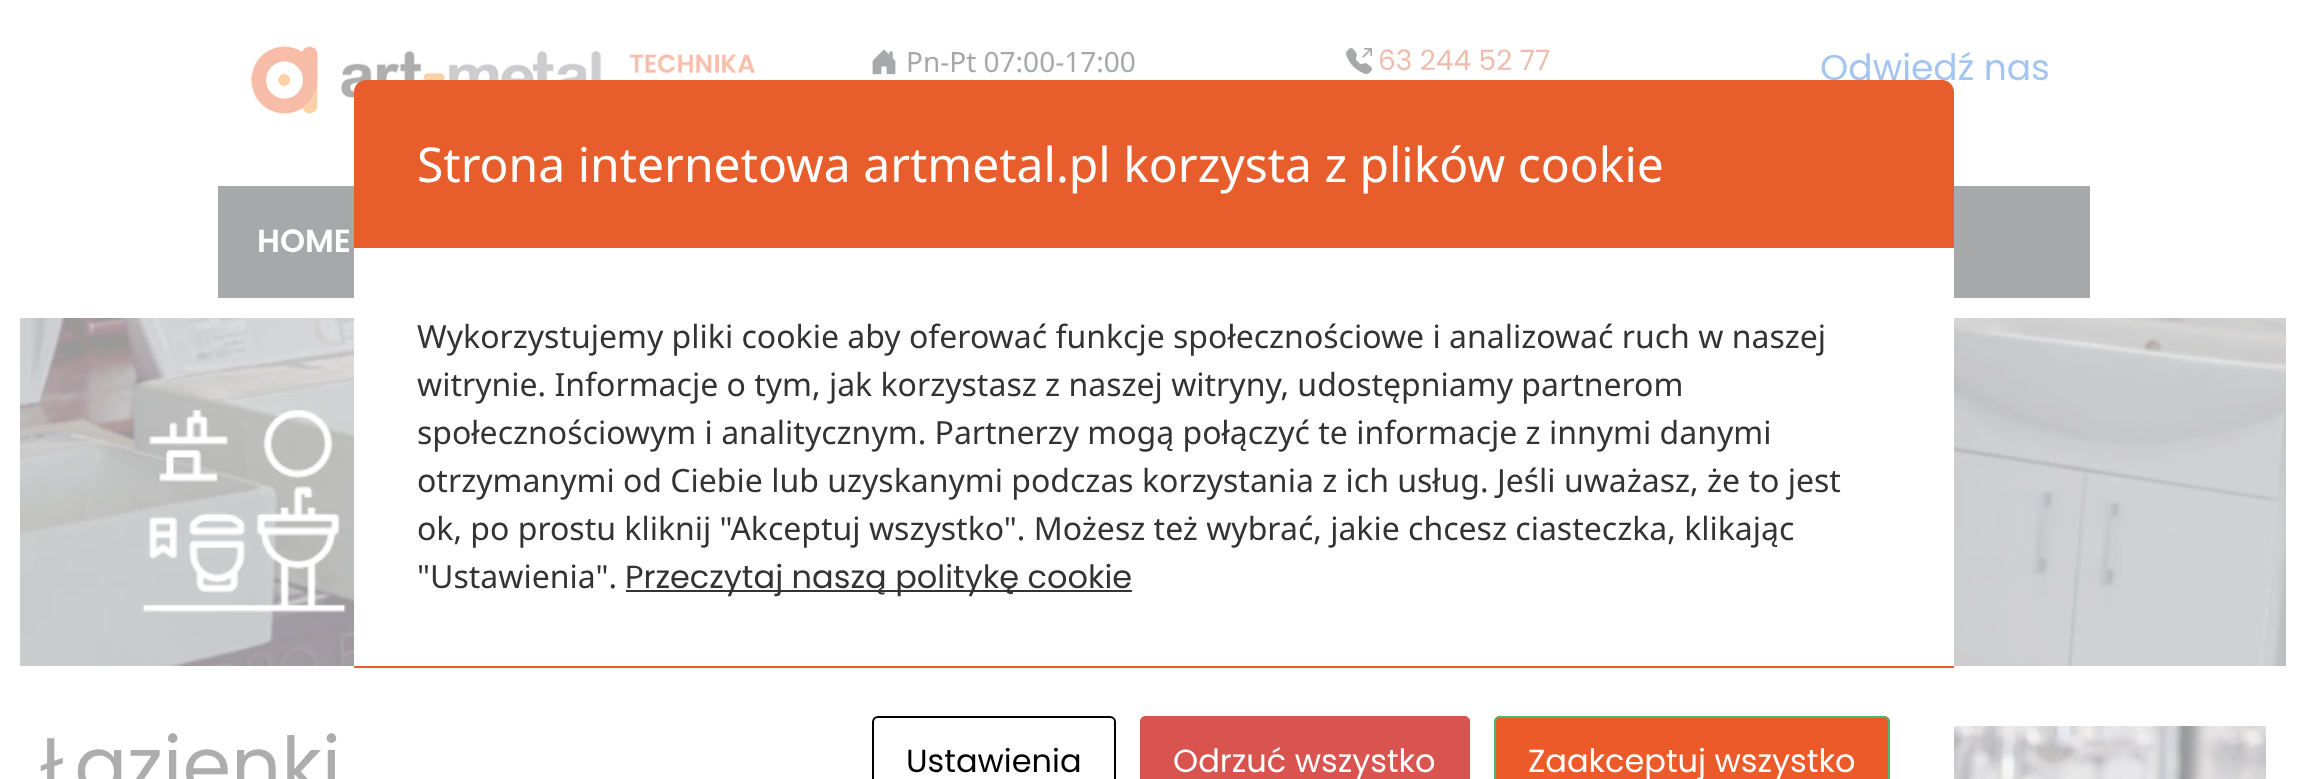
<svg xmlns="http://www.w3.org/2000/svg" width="2305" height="779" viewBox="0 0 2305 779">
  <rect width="100%" height="100%" fill="#ffffff"/>
  <image x="250" y="45" width="553" height="70" href="img1.png"/>
  <image x="872" y="49" width="24" height="26" href="img2.png"/>
  <text x="906" y="72" font-family="Noto Sans" font-size="28" fill="#a6a8a9">Pn-Pt 07:00-17:00</text>
  <image x="1346" y="48" width="26" height="26" href="img3.png"/>
  <text x="1378" y="70" font-family="Poppins" font-size="28" fill="#efbdae">63 244 52 77</text>
  <text x="1820" y="80" font-family="Poppins" font-size="36" fill="#a3c5ef">Odwiedź nas</text>
  <rect x="218" y="186" width="1872" height="112" fill="#a6a8a9"/>
  <text x="257" y="252" font-family="Poppins" font-size="32" font-weight="600" fill="#ffffff">HOME</text>
  <path d="M366 80H1942C1948.5 80 1954 85.5 1954 92V248H354V92C354 85.5 359.5 80 366 80Z" fill="#e85d2c"/>
  <text x="417" y="182" font-family="Noto Sans" font-size="48" fill="#ffffff">Strona internetowa artmetal.pl korzysta z plików cookie</text>
  <image x="20" y="318" width="2266" height="348" href="img4.png"/>
  <rect x="354" y="248" width="1600" height="418" fill="#ffffff"/>
  <text x="417" y="348" font-family="Noto Sans" font-size="32" fill="#333333">Wykorzystujemy pliki cookie aby oferować funkcje społecznościowe i analizować ruch w naszej</text>
  <text x="417" y="396" font-family="Noto Sans" font-size="32" fill="#333333">witrynie. Informacje o tym, jak korzystasz z naszej witryny, udostępniamy partnerom</text>
  <text x="417" y="444" font-family="Noto Sans" font-size="32" fill="#333333">społecznościowym i analitycznym. Partnerzy mogą połączyć te informacje z innymi danymi</text>
  <text x="417" y="492" font-family="Noto Sans" font-size="32" fill="#333333">otrzymanymi od Ciebie lub uzyskanymi podczas korzystania z ich usług. Jeśli uważasz, że to jest</text>
  <text x="417" y="540" font-family="Noto Sans" font-size="32" fill="#333333">ok, po prostu kliknij "Akceptuj wszystko". Możesz też wybrać, jakie chcesz ciasteczka, klikając</text>
  <text x="417" y="588" font-family="Noto Sans" font-size="32" fill="#333333">"Ustawienia".</text>
  <rect x="626" y="590" width="506" height="2" fill="#333333"/>
  <text x="625" y="588" font-family="Poppins" font-size="32" fill="#333333">Przeczytaj naszą politykę cookie</text>
  <rect x="354" y="666" width="1600" height="2" fill="#e85d2c"/>
  <rect x="873" y="717" width="242" height="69" rx="5" fill="none" stroke="#000000" stroke-width="2"/>
  <text x="906" y="772" font-family="Poppins" font-size="32" fill="#000000">Ustawienia</text>
  <path d="M1146 716H1464C1467.5 716 1470 718.5 1470 722V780H1140V722C1140 718.5 1142.5 716 1146 716Z" fill="#d9534f"/>
  <rect x="1141" y="717" width="328" height="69" rx="5" fill="none" stroke="#d9534f" stroke-width="2"/>
  <text x="1173" y="772" font-family="Poppins" font-size="32" fill="#ffffff">Odrzuć wszystko</text>
  <path d="M1500 716H1884C1887.5 716 1890 718.5 1890 722V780H1494V722C1494 718.5 1496.5 716 1500 716Z" fill="#eb5a28"/>
  <rect x="1495" y="717" width="394" height="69" rx="5" fill="none" stroke="#47b973" stroke-width="2"/>
  <text x="1528" y="772" font-family="Poppins" font-size="32" fill="#ffffff">Zaakceptuj wszystko</text>
  <text x="40" y="793" font-family="Poppins" font-size="78.5" fill="#adadad">Łazienki</text>
  <image x="1954" y="726" width="312" height="53" href="img5.png"/>
</svg>
